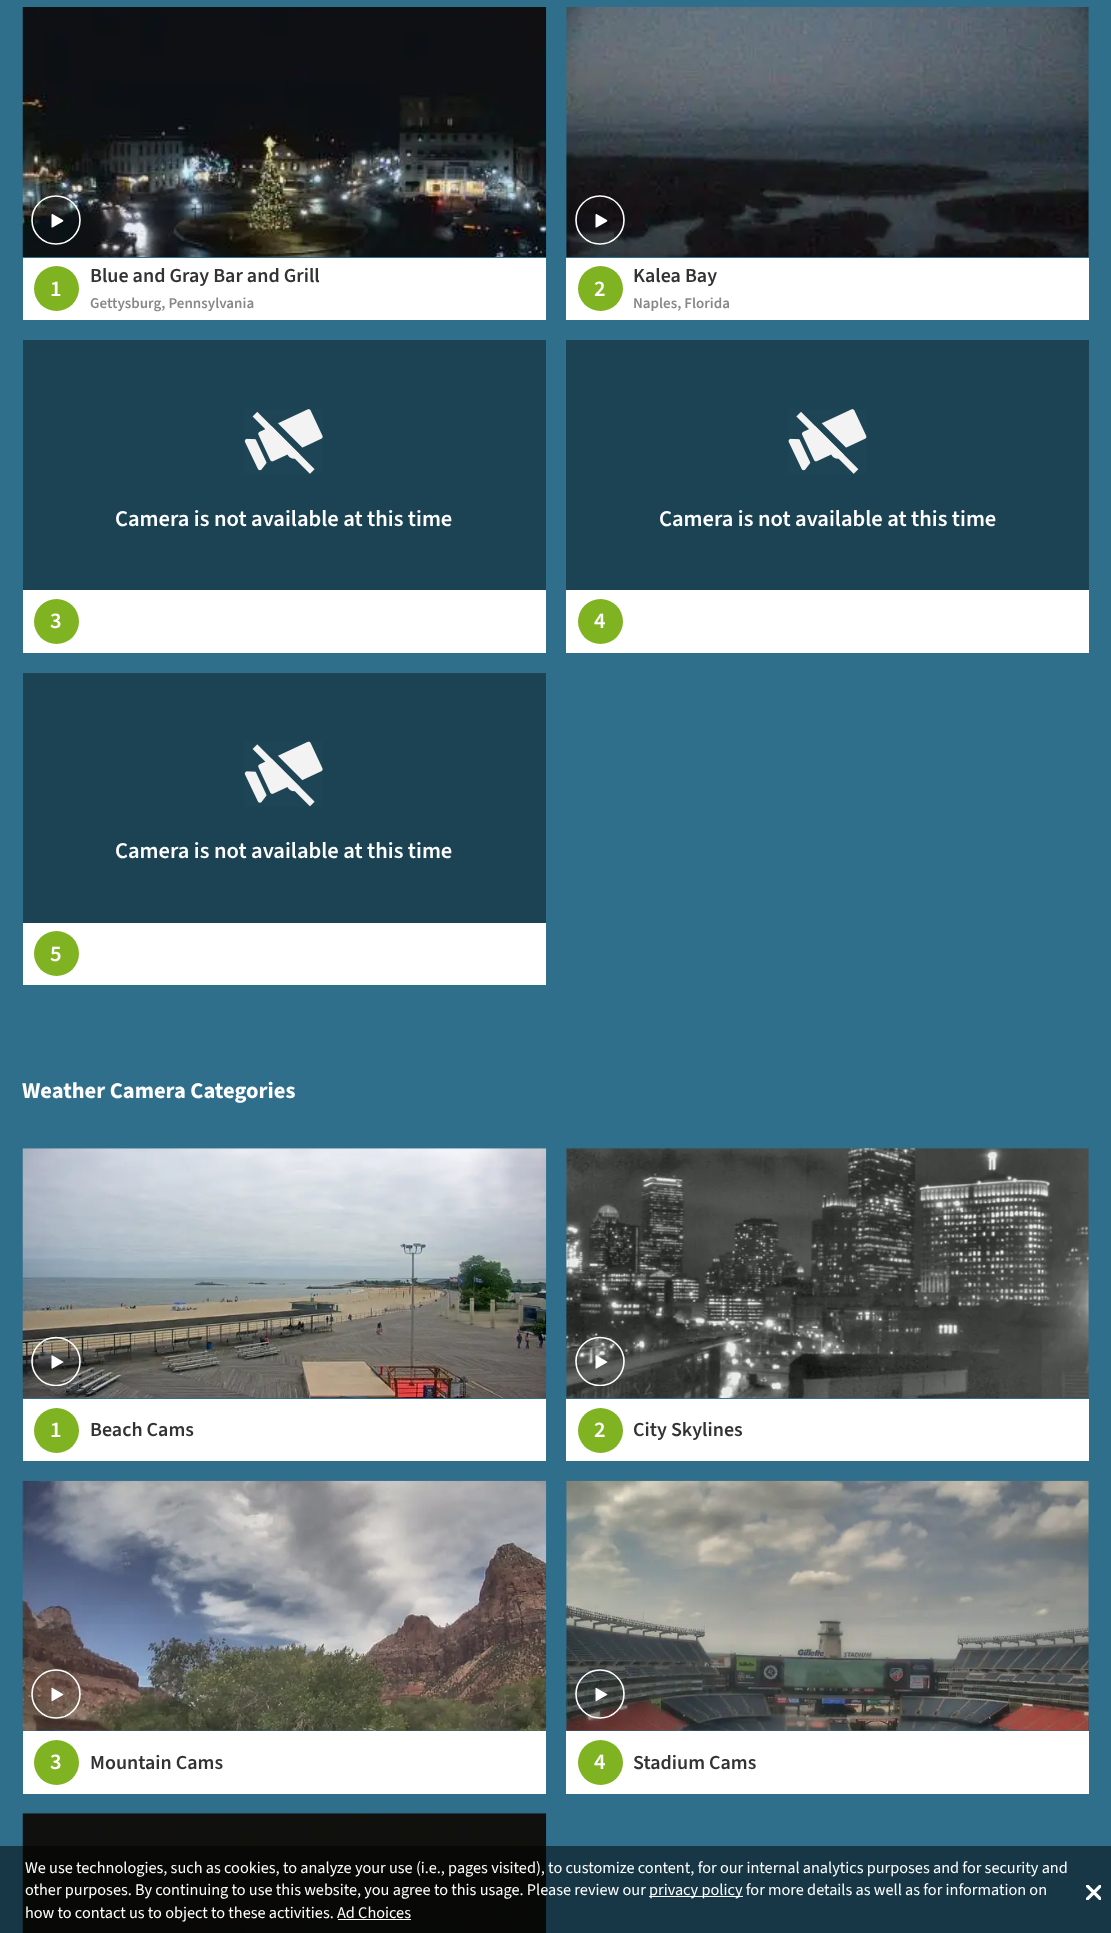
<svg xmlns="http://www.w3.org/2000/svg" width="1111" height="1933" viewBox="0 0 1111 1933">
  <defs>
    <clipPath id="clip1"><rect x="31" y="1336" width="50" height="50"/></clipPath>
    <clipPath id="clip2"><rect x="575" y="1336" width="50" height="50"/></clipPath>
  </defs>
  <rect width="100%" height="100%" fill="#2f6f8c"/>
  <image x="22" y="7" width="525" height="250" href="img1.png"/>
  <circle cx="56" cy="220" r="24" fill="none" stroke="#ffffff" stroke-width="1.6"/>
  <path d="M63 220C63.5 220.5 63.5 221 63 221.5L52.5 227.5C52 227.5 51.5 227.5 51.5 227V215C51.5 214 52 214 52.5 214Z" fill="#ffffff"/>
  <rect x="23" y="258" width="523" height="62" fill="#ffffff"/>
  <circle cx="56.5" cy="288.5" r="22.5" fill="#7fb322"/>
  <text x="50" y="296" font-family="'Source Sans 3'" font-size="22.5" font-weight="600" fill="#ffffff">1</text>
  <text x="90" y="282" font-family="'Source Sans 3'" font-size="20" font-weight="600" fill="#333333">Blue and Gray Bar and Grill</text>
  <text x="90" y="308" font-family="'Source Sans 3'" font-size="15" font-weight="600" fill="#888888">Gettysburg, Pennsylvania</text>
  <image x="566" y="7" width="523" height="250" href="img2.png"/>
  <circle cx="600" cy="220" r="24" fill="none" stroke="#ffffff" stroke-width="1.6"/>
  <path d="M607 220C607.5 220.5 607.5 221 607 221.5L596.5 227.5C596 227.5 595.5 227.5 595.5 227V215C595.5 214 596 214 596.5 214Z" fill="#ffffff"/>
  <rect x="566" y="258" width="523" height="62" fill="#ffffff"/>
  <circle cx="600.5" cy="288.5" r="22.5" fill="#7fb322"/>
  <text x="594" y="296" font-family="'Source Sans 3'" font-size="22.5" font-weight="600" fill="#ffffff">2</text>
  <text x="633" y="282" font-family="'Source Sans 3'" font-size="20" font-weight="600" fill="#333333">Kalea Bay</text>
  <text x="633" y="308" font-family="'Source Sans 3'" font-size="15" font-weight="600" fill="#888888">Naples, Florida</text>
  <rect x="23" y="340" width="523" height="250" fill="#1c4354"/>
  <image x="244" y="409" width="79" height="65" href="img3.png"/>
  <text x="115" y="526" font-family="'Source Sans 3'" font-size="22.5" font-weight="600" fill="#ffffff">Camera is not available at this time</text>
  <rect x="23" y="590" width="523" height="63" fill="#ffffff"/>
  <circle cx="56.5" cy="621.5" r="22.5" fill="#7fb322"/>
  <text x="50" y="628" font-family="'Source Sans 3'" font-size="22.5" font-weight="600" fill="#ffffff">3</text>
  <rect x="566" y="340" width="523" height="250" fill="#1c4354"/>
  <image x="788" y="409" width="79" height="65" href="img4.png"/>
  <text x="659" y="526" font-family="'Source Sans 3'" font-size="22.5" font-weight="600" fill="#ffffff">Camera is not available at this time</text>
  <rect x="566" y="590" width="523" height="63" fill="#ffffff"/>
  <circle cx="600.5" cy="621.5" r="22.5" fill="#7fb322"/>
  <text x="594" y="628" font-family="'Source Sans 3'" font-size="22.5" font-weight="600" fill="#ffffff">4</text>
  <rect x="23" y="673" width="523" height="250" fill="#1c4354"/>
  <image x="244" y="741" width="79" height="66" href="img5.png"/>
  <text x="115" y="858" font-family="'Source Sans 3'" font-size="22.5" font-weight="600" fill="#ffffff">Camera is not available at this time</text>
  <rect x="23" y="923" width="523" height="62" fill="#ffffff"/>
  <circle cx="56.5" cy="953.5" r="22.5" fill="#7fb322"/>
  <text x="50" y="961" font-family="'Source Sans 3'" font-size="22.5" font-weight="600" fill="#ffffff">5</text>
  <text x="22" y="1098" font-family="'Source Sans 3'" font-size="22.5" font-weight="bold" fill="#ffffff">Weather Camera Categories</text>
  <image x="22" y="1148" width="525" height="251" href="img6.png"/>
  <g clip-path="url(#clip1)">
    <circle cx="56" cy="1361.5" r="24" fill="none" stroke="#ffffff" stroke-width="1.6"/>
  </g>
  <path d="M63 1361.5C63.5 1362 63.5 1362.5 63 1362.5L52.5 1368.5C52 1369 51.5 1368.5 51.5 1368V1356C51.5 1355.5 52 1355 52.5 1355.5Z" fill="#ffffff"/>
  <rect x="23" y="1399" width="523" height="62" fill="#ffffff"/>
  <circle cx="56.5" cy="1430.5" r="22.5" fill="#7fb322"/>
  <text x="50" y="1437" font-family="'Source Sans 3'" font-size="22.5" font-weight="600" fill="#ffffff">1</text>
  <text x="90" y="1436" font-family="'Source Sans 3'" font-size="20" font-weight="600" fill="#333333">Beach Cams</text>
  <image x="566" y="1148" width="523" height="251" href="img7.png"/>
  <g clip-path="url(#clip2)">
    <circle cx="600" cy="1361.5" r="24" fill="none" stroke="#ffffff" stroke-width="1.6"/>
  </g>
  <path d="M607 1361.5C607.5 1362 607.5 1362.5 607 1362.5L596.5 1368.5C596 1369 595.5 1368.5 595.5 1368V1356C595.5 1355.5 596 1355 596.5 1355.5Z" fill="#ffffff"/>
  <rect x="566" y="1399" width="523" height="62" fill="#ffffff"/>
  <circle cx="600.5" cy="1430.5" r="22.5" fill="#7fb322"/>
  <text x="594" y="1437" font-family="'Source Sans 3'" font-size="22.5" font-weight="600" fill="#ffffff">2</text>
  <text x="633" y="1436" font-family="'Source Sans 3'" font-size="20" font-weight="600" fill="#333333">City Skylines</text>
  <image x="22" y="1480" width="525" height="251" href="img8.png"/>
  <circle cx="56" cy="1694" r="24" fill="none" stroke="#ffffff" stroke-width="1.6"/>
  <path d="M63 1694C63.5 1694.5 63.5 1695 63 1695L52.5 1701C52 1701.5 51.5 1701 51.5 1700.5V1688.5C51.5 1688 52 1687.5 52.5 1688Z" fill="#ffffff"/>
  <rect x="23" y="1731" width="523" height="63" fill="#ffffff"/>
  <circle cx="56.5" cy="1762.5" r="22.5" fill="#7fb322"/>
  <text x="50" y="1769" font-family="'Source Sans 3'" font-size="22.5" font-weight="600" fill="#ffffff">3</text>
  <text x="90" y="1769" font-family="'Source Sans 3'" font-size="20" font-weight="600" fill="#333333">Mountain Cams</text>
  <image x="566" y="1480" width="523" height="251" href="img9.png"/>
  <circle cx="600" cy="1694" r="24" fill="none" stroke="#ffffff" stroke-width="1.6"/>
  <path d="M607 1694C607.5 1694.5 607.5 1695 607 1695L596.5 1701C596 1701.5 595.5 1701 595.5 1700.5V1688.5C595.5 1688 596 1687.5 596.5 1688Z" fill="#ffffff"/>
  <rect x="566" y="1731" width="523" height="63" fill="#ffffff"/>
  <circle cx="600.5" cy="1762.5" r="22.5" fill="#7fb322"/>
  <text x="594" y="1769" font-family="'Source Sans 3'" font-size="22.5" font-weight="600" fill="#ffffff">4</text>
  <text x="633" y="1769" font-family="'Source Sans 3'" font-size="20" font-weight="600" fill="#333333">Stadium Cams</text>
  <image x="22" y="1813" width="525" height="120" href="img10.png"/>
  <rect x="0" y="1846" width="1111" height="87" fill="#000000" fill-opacity="0.5"/>
  <text x="25" y="1873" font-family="'Source Sans 3'" font-size="16.25" fill="#ffffff">We use technologies, such as cookies, to analyze your use (i.e., pages visited), to customize content, for our internal analytics purposes and for security and</text>
  <text x="25" y="1895" font-family="'Source Sans 3'" font-size="16.25" fill="#ffffff">other purposes. By continuing to use this website, you agree to this usage. Please review our</text>
  <rect x="649" y="1896" width="94" height="1" fill="#ffffff"/>
  <text x="649" y="1895" font-family="'Source Sans 3'" font-size="16.25" fill="#ffffff">privacy policy for more details as well as for information on</text>
  <text x="25" y="1918" font-family="'Source Sans 3'" font-size="16.25" fill="#ffffff">how to contact us to object to these activities. Ad Choices</text>
  <rect x="338" y="1919" width="73" height="1" fill="#ffffff"/>
  <image x="1086" y="1885" width="15" height="15" href="img11.png"/>
</svg>
